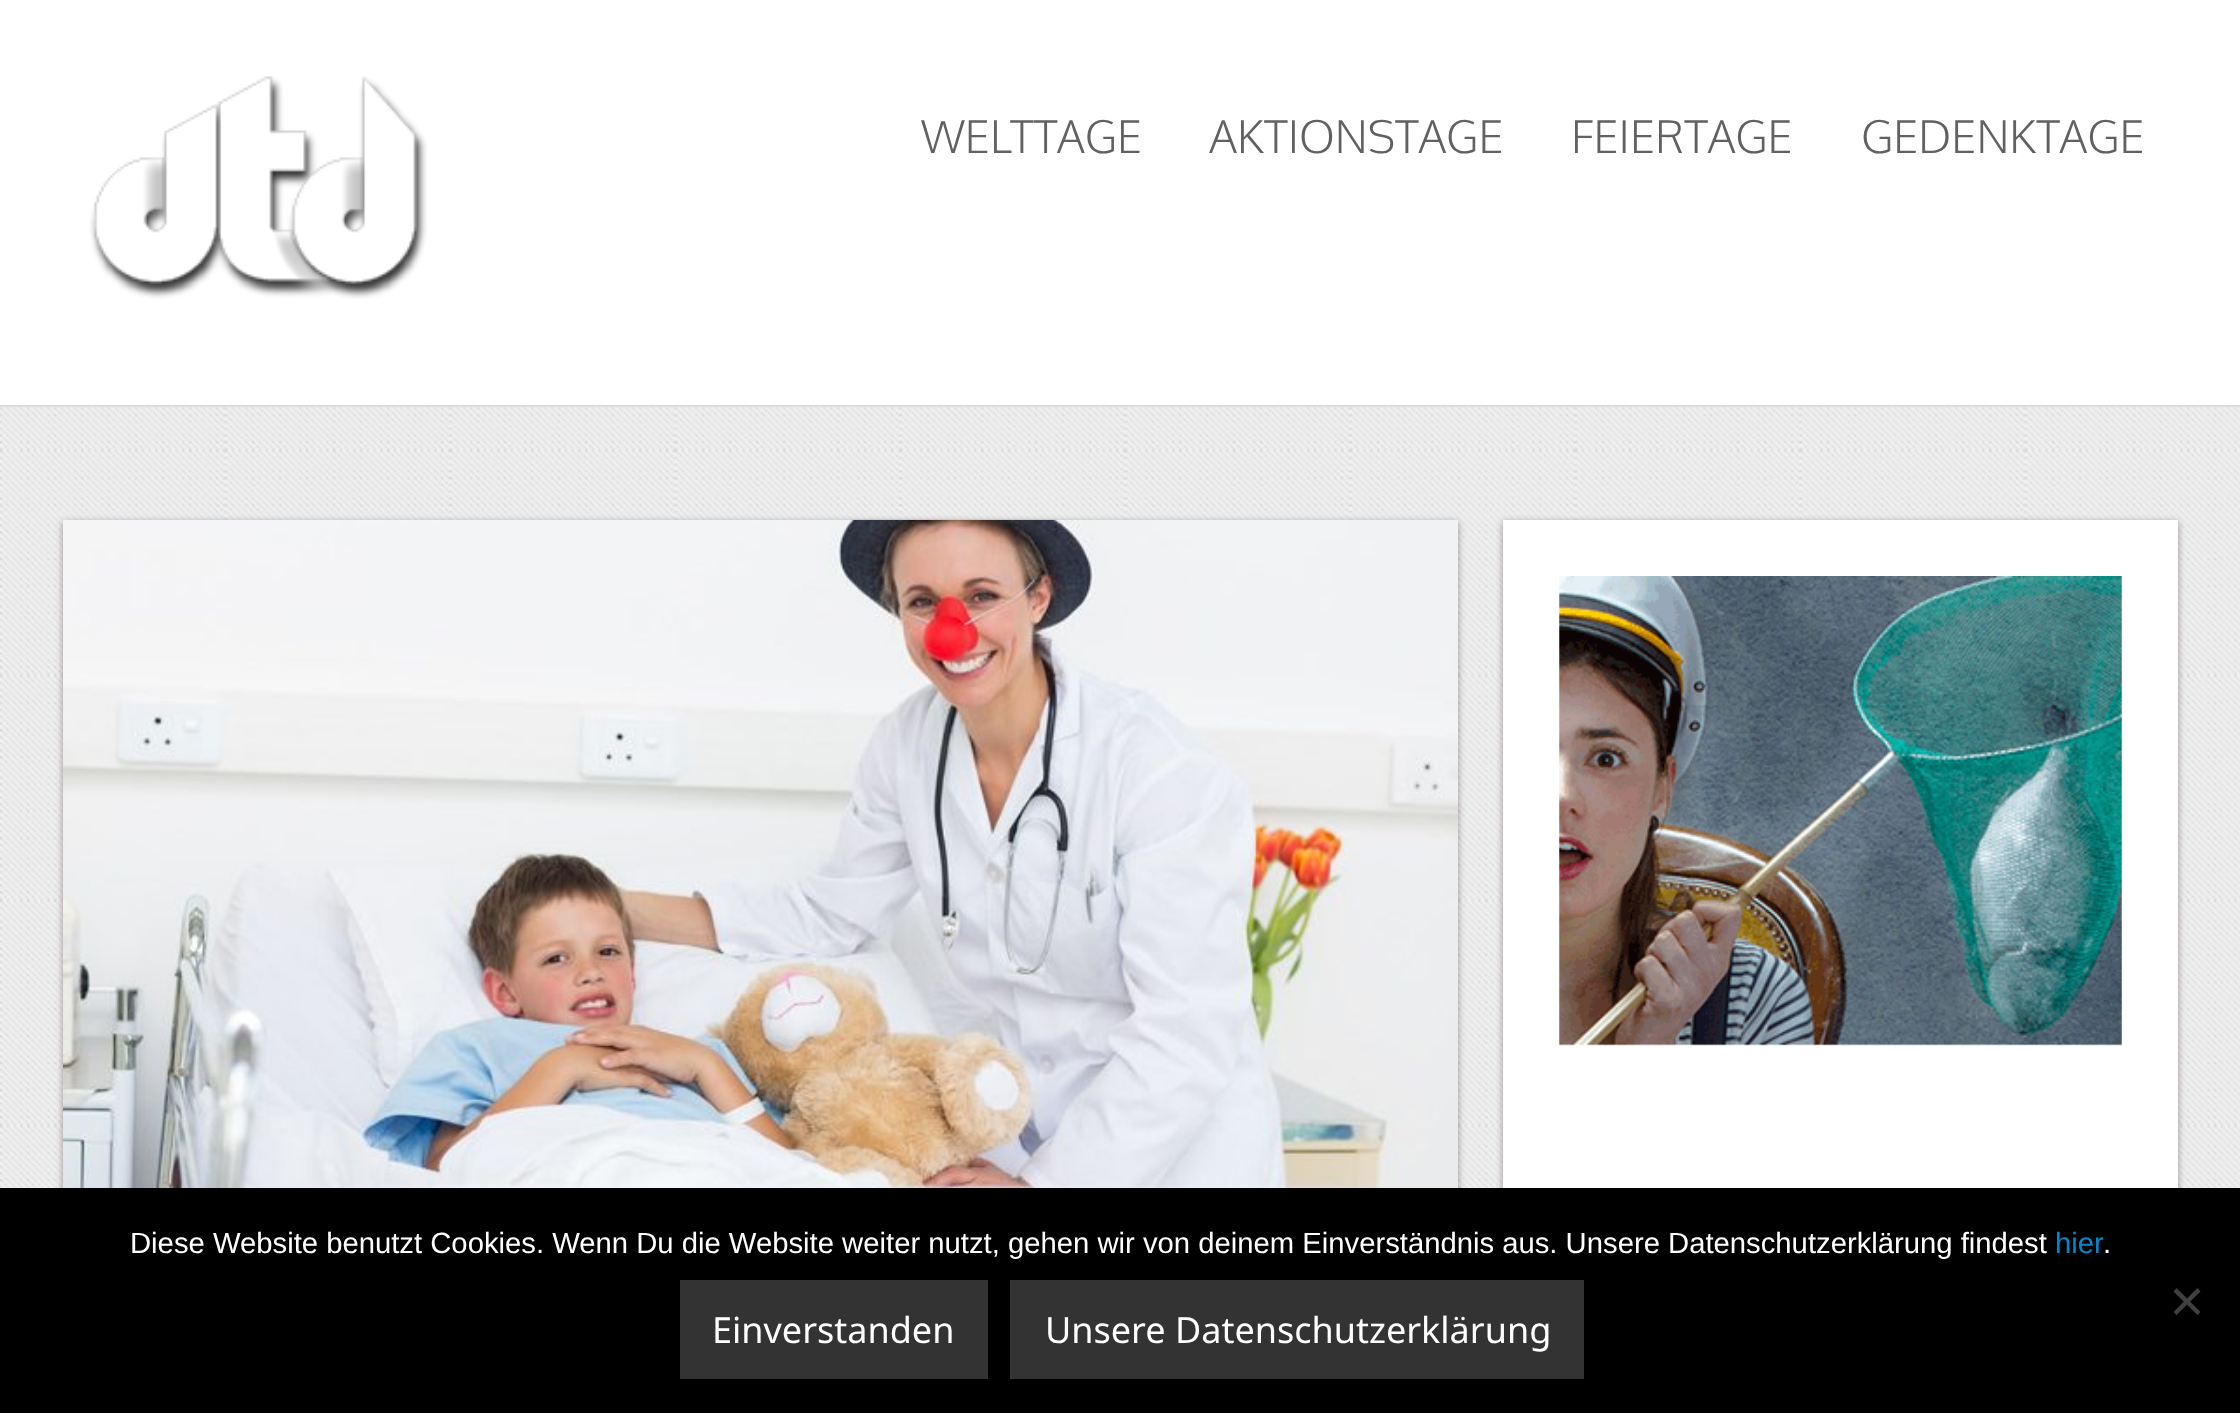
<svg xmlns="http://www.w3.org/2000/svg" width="2240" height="1413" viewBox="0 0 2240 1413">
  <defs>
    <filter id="blur1" x="-50%" y="-200%" width="200%" height="500%"><feGaussianBlur stdDeviation="3.5"/></filter>
  </defs>
  <rect width="100%" height="100%" fill="#ffffff"/>
  <image x="0" y="407" width="2240" height="781" href="img1.png"/>
  <rect x="0" y="405" width="2240" height="2" fill="#dddddd"/>
  <image x="90" y="76" width="337" height="223" href="img2.png"/>
  <text x="921" y="153" font-family="Oxygen" font-size="45" font-weight="300" fill="#616161">WELTTAGE</text>
  <text x="1209" y="153" font-family="Oxygen" font-size="45" font-weight="300" fill="#616161">AKTIONSTAGE</text>
  <text x="1571" y="153" font-family="Oxygen" font-size="45" font-weight="300" fill="#616161">FEIERTAGE</text>
  <text x="1861" y="153" font-family="Oxygen" font-size="45" font-weight="300" fill="#616161">GEDENKTAGE</text>
  <rect x="63" y="522" width="1395" height="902" fill="#221919" fill-opacity="0.4" filter="url(#blur1)"/>
  <image x="63" y="519" width="1395" height="669" href="img3.png"/>
  <rect x="1503" y="522" width="675" height="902" fill="#221919" fill-opacity="0.4" filter="url(#blur1)"/>
  <rect x="1503" y="520" width="675" height="668" fill="#ffffff"/>
  <image x="1559" y="576" width="563" height="470" href="img4.png"/>
  <rect x="0" y="1188" width="2240" height="225" fill="#000000"/>
  <text x="130" y="1253" font-family="Liberation Sans" font-size="29.25" fill="#ffffff">Diese Website benutzt Cookies. Wenn Du die Website weiter nutzt, gehen wir von deinem Einverständnis aus. Unsere Datenschutzerklärung findest</text>
  <text x="2055" y="1253" font-family="Liberation Sans" font-size="29.25" fill="#0088cc">hier</text>
  <text x="2103" y="1253" font-family="Liberation Sans" font-size="29.25" fill="#ffffff">.</text>
  <path d="M2197.5 1288L2200.5 1291.5L2176.5 1315L2173.5 1312Z" fill="#404040"/>
  <path d="M2173.5 1291.5L2176.5 1288L2200.5 1312L2197.5 1315Z" fill="#404040"/>
  <rect x="680" y="1280" width="308" height="99" fill="#333333"/>
  <text x="712" y="1343" font-family="Noto Sans" font-size="36" fill="#ffffff">Einverstanden</text>
  <rect x="1010" y="1280" width="574" height="99" fill="#333333"/>
  <text x="1045" y="1343" font-family="Noto Sans" font-size="36" fill="#ffffff">Unsere Datenschutzerklärung</text>
</svg>
